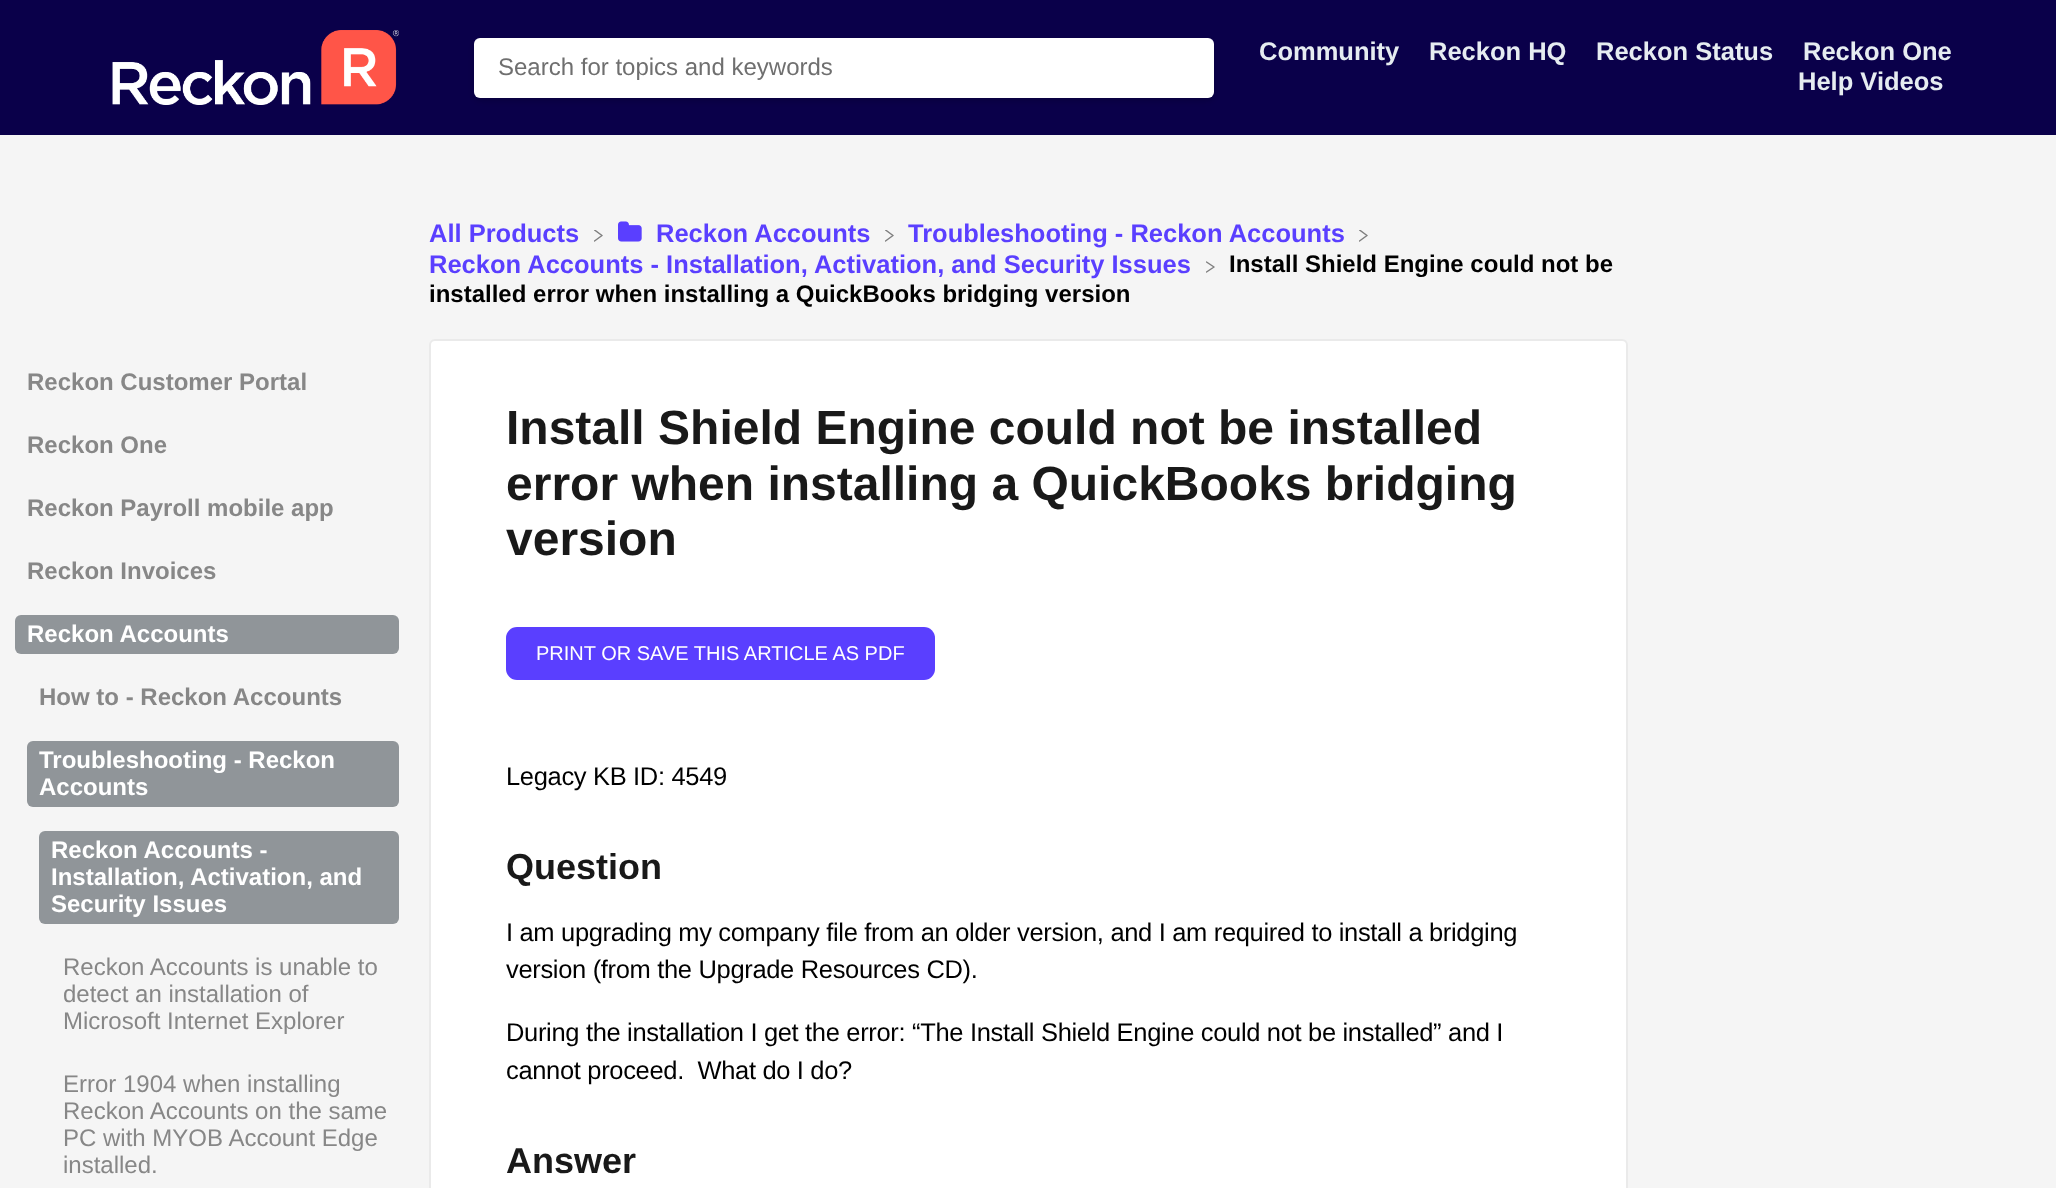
<svg xmlns="http://www.w3.org/2000/svg" width="2056" height="1188" viewBox="0 0 2056 1188">
  <defs>
    <filter id="blur1" x="-50%" y="-200%" width="200%" height="500%"><feGaussianBlur stdDeviation="3"/></filter>
    <clipPath id="clip1"><rect x="594" y="230" width="9" height="12"/></clipPath>
    <clipPath id="clip2"><rect x="885" y="230" width="9" height="12"/></clipPath>
    <clipPath id="clip3"><rect x="1359" y="230" width="9" height="12"/></clipPath>
    <clipPath id="clip4"><rect x="1206" y="261" width="9" height="12"/></clipPath>
  </defs>
  <rect width="100%" height="100%" fill="#0a004a"/>
  <image x="112" y="30" width="287" height="75" href="img1.png"/>
  <rect x="474" y="41" width="740" height="60" rx="6" fill="#000000" fill-opacity="0.16" filter="url(#blur1)"/>
  <rect x="474" y="38" width="740" height="60" rx="6" fill="#ffffff"/>
  <text x="498" y="75" font-family="Liberation Sans" font-size="24" fill="#6f6f6f">Search for topics and keywords</text>
  <text x="1259" y="60" font-family="Liberation Sans" font-size="25.5" font-weight="bold" fill="#e6ecf1">Community</text>
  <text x="1429" y="60" font-family="Liberation Sans" font-size="25.5" font-weight="bold" fill="#e6ecf1">Reckon HQ</text>
  <text x="1596" y="60" font-family="Liberation Sans" font-size="25.5" font-weight="bold" fill="#e6ecf1">Reckon Status</text>
  <text x="1803" y="60" font-family="Liberation Sans" font-size="25.5" font-weight="bold" fill="#e6ecf1">Reckon One</text>
  <text x="1798" y="90" font-family="Liberation Sans" font-size="25.5" font-weight="bold" fill="#e6ecf1">Help Videos</text>
  <rect x="0" y="135" width="2056" height="1053" fill="#f5f5f5"/>
  <text x="429" y="242" font-family="Liberation Sans" font-size="25.5" font-weight="bold" fill="#5a3fff">All Products</text>
  <g clip-path="url(#clip1)">
    <path d="M594.5 230L602 235.5L594.5 241" fill="none" stroke="#808080" stroke-width="1.5" stroke-linecap="round" stroke-linejoin="round"/>
  </g>
  <image x="618" y="221" width="24" height="21" href="img2.png"/>
  <text x="656" y="242" font-family="Liberation Sans" font-size="25.5" font-weight="bold" fill="#5a3fff">Reckon Accounts</text>
  <g clip-path="url(#clip2)">
    <path d="M885.5 230L893 235.5L885.5 241" fill="none" stroke="#808080" stroke-width="1.5" stroke-linecap="round" stroke-linejoin="round"/>
  </g>
  <text x="908" y="242" font-family="Liberation Sans" font-size="25.5" font-weight="bold" fill="#5a3fff">Troubleshooting - Reckon Accounts</text>
  <g clip-path="url(#clip3)">
    <path d="M1359.5 230L1367 235.5L1359.5 241" fill="none" stroke="#808080" stroke-width="1.5" stroke-linecap="round" stroke-linejoin="round"/>
  </g>
  <text x="429" y="273" font-family="Liberation Sans" font-size="25.5" font-weight="bold" fill="#5a3fff">Reckon Accounts - Installation, Activation, and Security Issues</text>
  <g clip-path="url(#clip4)">
    <path d="M1206.5 262L1214 267L1206.5 272" fill="none" stroke="#808080" stroke-width="1.5" stroke-linecap="round" stroke-linejoin="round"/>
  </g>
  <text x="1229" y="272" font-family="Liberation Sans" font-size="24" font-weight="bold" fill="#000000">Install Shield Engine could not be</text>
  <text x="429" y="302" font-family="Liberation Sans" font-size="24" font-weight="bold" fill="#000000">installed error when installing a QuickBooks bridging version</text>
  <text x="27" y="390" font-family="Liberation Sans" font-size="24" font-weight="bold" fill="#878787">Reckon Customer Portal</text>
  <text x="27" y="453" font-family="Liberation Sans" font-size="24" font-weight="bold" fill="#878787">Reckon One</text>
  <text x="27" y="516" font-family="Liberation Sans" font-size="24" font-weight="bold" fill="#878787">Reckon Payroll mobile app</text>
  <text x="27" y="579" font-family="Liberation Sans" font-size="24" font-weight="bold" fill="#878787">Reckon Invoices</text>
  <rect x="15" y="615" width="384" height="39" rx="6" fill="#909599"/>
  <text x="27" y="642" font-family="Liberation Sans" font-size="24" font-weight="bold" fill="#ffffff">Reckon Accounts</text>
  <text x="39" y="705" font-family="Liberation Sans" font-size="24" font-weight="bold" fill="#878787">How to - Reckon Accounts</text>
  <rect x="27" y="741" width="372" height="66" rx="6" fill="#909599"/>
  <text x="39" y="768" font-family="Liberation Sans" font-size="24" font-weight="bold" fill="#ffffff">Troubleshooting - Reckon</text>
  <text x="39" y="795" font-family="Liberation Sans" font-size="24" font-weight="bold" fill="#ffffff">Accounts</text>
  <rect x="39" y="831" width="360" height="93" rx="6" fill="#909599"/>
  <text x="51" y="858" font-family="Liberation Sans" font-size="24" font-weight="bold" fill="#ffffff">Reckon Accounts -</text>
  <text x="51" y="885" font-family="Liberation Sans" font-size="24" font-weight="bold" fill="#ffffff">Installation, Activation, and</text>
  <text x="51" y="912" font-family="Liberation Sans" font-size="24" font-weight="bold" fill="#ffffff">Security Issues</text>
  <text x="63" y="975" font-family="Liberation Sans" font-size="24" fill="#878787">Reckon Accounts is unable to</text>
  <text x="63" y="1002" font-family="Liberation Sans" font-size="24" fill="#878787">detect an installation of</text>
  <text x="63" y="1029" font-family="Liberation Sans" font-size="24" fill="#878787">Microsoft Internet Explorer</text>
  <text x="63" y="1092" font-family="Liberation Sans" font-size="24" fill="#878787">Error 1904 when installing</text>
  <text x="63" y="1119" font-family="Liberation Sans" font-size="24" fill="#878787">Reckon Accounts on the same</text>
  <text x="63" y="1146" font-family="Liberation Sans" font-size="24" fill="#878787">PC with MYOB Account Edge</text>
  <text x="63" y="1173" font-family="Liberation Sans" font-size="24" fill="#878787">installed.</text>
  <rect x="430" y="340" width="1197" height="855" rx="5" fill="#ffffff" stroke="#eaeaea" stroke-width="2"/>
  <text x="506" y="444" font-family="Liberation Sans" font-size="48" font-weight="bold" fill="#191919">Install Shield Engine could not be installed</text>
  <text x="506" y="500" font-family="Liberation Sans" font-size="48" font-weight="bold" fill="#191919">error when installing a QuickBooks bridging</text>
  <text x="506" y="555" font-family="Liberation Sans" font-size="48" font-weight="bold" fill="#191919">version</text>
  <rect x="506" y="627" width="429" height="53" rx="11" fill="#5a3fff"/>
  <text x="536" y="660" font-family="Liberation Sans" font-size="20" fill="#ffffff">PRINT OR SAVE THIS ARTICLE AS PDF</text>
  <text x="506" y="785" font-family="Liberation Sans" font-size="25.5" letter-spacing="-0.33" fill="#000000">Legacy KB ID: 4549</text>
  <text x="506" y="879" font-family="Liberation Sans" font-size="36" font-weight="bold" fill="#191919">Question</text>
  <text x="506" y="941" font-family="Liberation Sans" font-size="25.5" letter-spacing="-0.33" fill="#000000">I am upgrading my company file from an older version, and I am required to install a bridging</text>
  <text x="506" y="978" font-family="Liberation Sans" font-size="25.5" letter-spacing="-0.33" fill="#000000">version (from the Upgrade Resources CD).</text>
  <text x="506" y="1041" font-family="Liberation Sans" font-size="25.5" letter-spacing="-0.33" fill="#000000">During the installation I get the error: “The Install Shield Engine could not be installed” and I</text>
  <text x="506" y="1079" font-family="Liberation Sans" font-size="25.5" letter-spacing="-0.33" fill="#000000" xml:space="preserve">cannot proceed.  What do I do?</text>
  <text x="506" y="1173" font-family="Liberation Sans" font-size="36" font-weight="bold" fill="#191919">Answer</text>
</svg>
